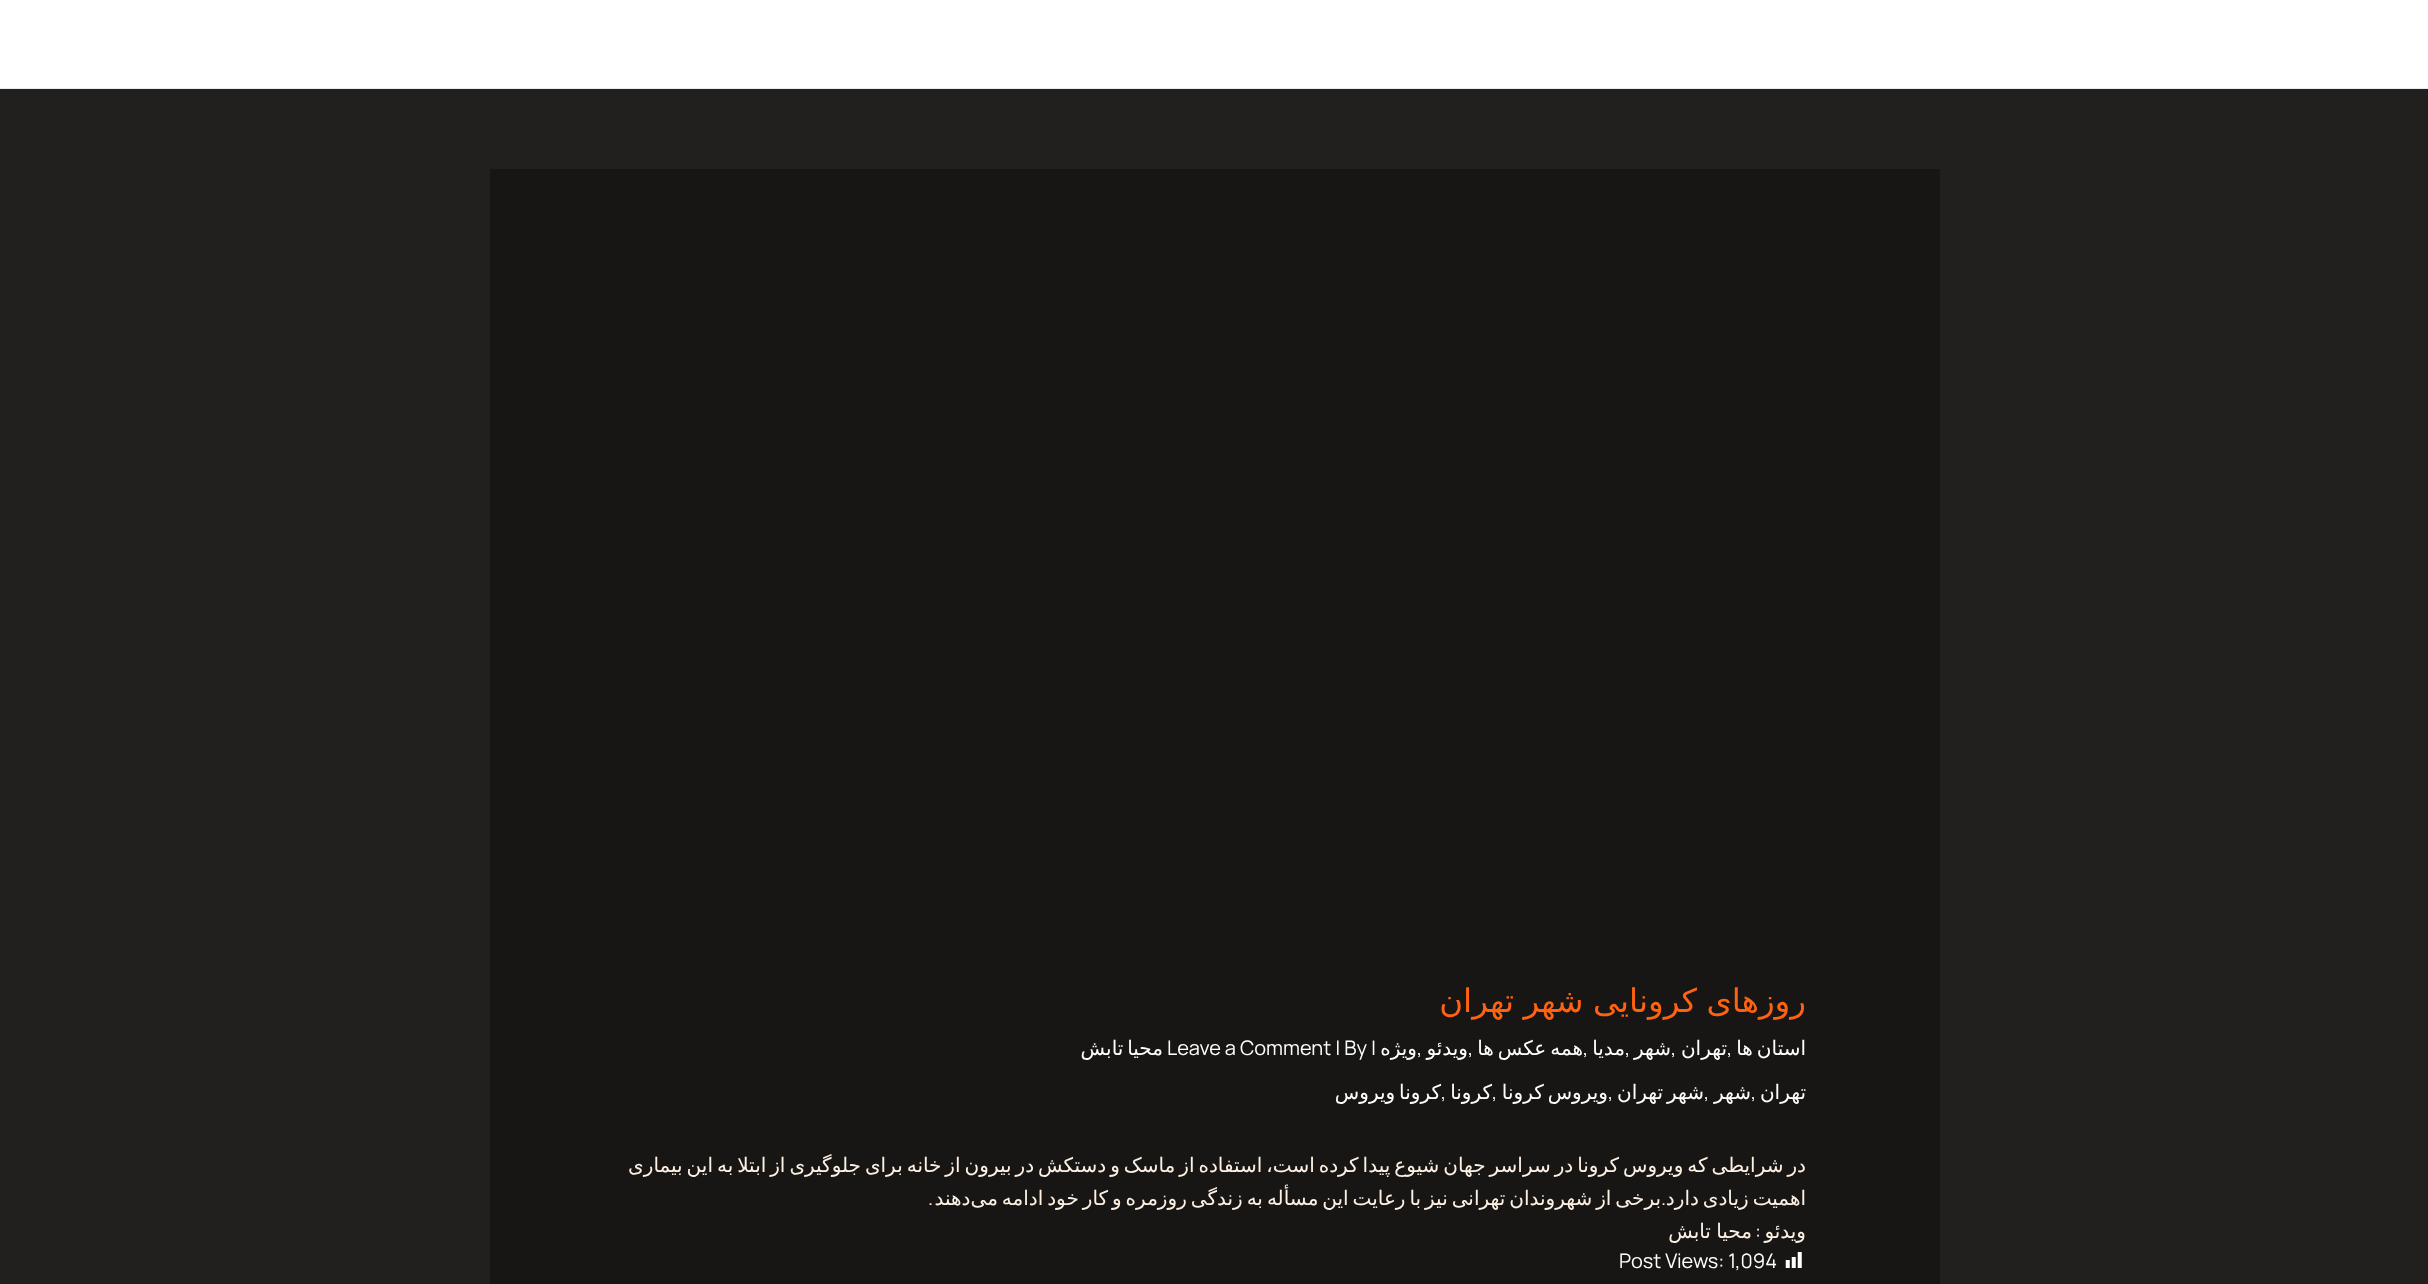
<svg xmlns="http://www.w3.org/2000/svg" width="2428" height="1284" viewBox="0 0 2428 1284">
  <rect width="100%" height="100%" fill="#21201f"/>
  <rect x="0" y="0" width="2428" height="88" fill="#ffffff"/>
  <rect x="0" y="88" width="2428" height="1" fill="#eaeaea"/>
  <rect x="490" y="169" width="1450" height="1115" fill="#171615"/>
  <text x="1806" y="1012" word-spacing="-1" font-family="DejaVu Sans" font-size="32.5" direction="rtl" fill="#ff6210">روزهای کرونایی شهر تهران</text>
  <text x="1806" y="1055" word-spacing="-2.4" font-family="DejaVu Sans" font-size="20" direction="rtl" fill="#ffffff">استان ها</text>
  <text x="1727" y="1055" font-family="Manrope" font-size="20" font-weight="200" fill="#ffffff">,</text>
  <text x="1727" y="1055" font-family="DejaVu Sans" font-size="20" direction="rtl" fill="#ffffff">تهران</text>
  <text x="1671" y="1055" font-family="Manrope" font-size="20" font-weight="200" fill="#ffffff">,</text>
  <text x="1671" y="1055" font-family="DejaVu Sans" font-size="20" direction="rtl" fill="#ffffff">شهر</text>
  <text x="1625" y="1055" font-family="Manrope" font-size="20" font-weight="200" fill="#ffffff">,</text>
  <text x="1625" y="1055" font-family="DejaVu Sans" font-size="20" direction="rtl" fill="#ffffff">مدیا</text>
  <text x="1583" y="1055" font-family="Manrope" font-size="20" font-weight="200" fill="#ffffff">,</text>
  <text x="1583" y="1055" word-spacing="-2.4" font-family="DejaVu Sans" font-size="20" direction="rtl" fill="#ffffff">همه عکس ها</text>
  <text x="1468" y="1055" font-family="Manrope" font-size="20" font-weight="200" fill="#ffffff">,</text>
  <text x="1468" y="1055" font-family="DejaVu Sans" font-size="20" direction="rtl" fill="#ffffff">ویدئو</text>
  <text x="1417" y="1055" font-family="Manrope" font-size="20" font-weight="200" fill="#ffffff">,</text>
  <text x="1417" y="1055" font-family="DejaVu Sans" font-size="20" direction="rtl" fill="#ffffff">ویژه</text>
  <text x="1371" y="1055" font-family="Manrope" font-size="20" font-weight="200" fill="#ffffff">|</text>
  <text x="1167" y="1055" font-family="Manrope" font-size="20" font-weight="200" fill="#ffffff">Leave a Comment | By</text>
  <text x="1163" y="1055" word-spacing="-2.4" font-family="DejaVu Sans" font-size="20" direction="rtl" fill="#ffffff">محیا تابش</text>
  <text x="1806" y="1099" font-family="DejaVu Sans" font-size="20" direction="rtl" fill="#ffffff">تهران</text>
  <text x="1751" y="1099" font-family="Manrope" font-size="20" font-weight="200" fill="#fef1e4">,</text>
  <text x="1751" y="1099" font-family="DejaVu Sans" font-size="20" direction="rtl" fill="#ffffff">شهر</text>
  <text x="1704" y="1099" font-family="Manrope" font-size="20" font-weight="200" fill="#fef1e4">,</text>
  <text x="1704" y="1099" word-spacing="-2.4" font-family="DejaVu Sans" font-size="20" direction="rtl" fill="#ffffff">شهر تهران</text>
  <text x="1608" y="1099" font-family="Manrope" font-size="20" font-weight="200" fill="#fef1e4">,</text>
  <text x="1608" y="1099" word-spacing="-2.4" font-family="DejaVu Sans" font-size="20" direction="rtl" fill="#ffffff">ویروس کرونا</text>
  <text x="1492" y="1099" font-family="Manrope" font-size="20" font-weight="200" fill="#fef1e4">,</text>
  <text x="1492" y="1099" font-family="DejaVu Sans" font-size="20" direction="rtl" fill="#ffffff">کرونا</text>
  <text x="1441" y="1099" font-family="Manrope" font-size="20" font-weight="200" fill="#fef1e4">,</text>
  <text x="1441" y="1099" word-spacing="-2.4" font-family="DejaVu Sans" font-size="20" direction="rtl" fill="#ffffff">کرونا ویروس</text>
  <text x="1806" y="1172" word-spacing="-2.4" font-family="DejaVu Sans" font-size="20" direction="rtl" fill="#fef1e4">در شرایطی که ویروس کرونا در سراسر جهان شیوع پیدا کرده است، استفاده از ماسک و دستکش در بیرون از خانه برای جلوگیری از ابتلا به این بیماری</text>
  <text x="1806" y="1205" word-spacing="-2.4" font-family="DejaVu Sans" font-size="20" direction="rtl" fill="#fef1e4">اهمیت زیادی دارد</text>
  <text x="1666" y="1205" font-family="Manrope" font-size="20" font-weight="200" direction="rtl" fill="#fef1e4">.</text>
  <text x="1661" y="1205" word-spacing="-2.4" font-family="DejaVu Sans" font-size="20" direction="rtl" fill="#fef1e4">برخی از شهروندان تهرانی نیز با رعایت این مسأله به زندگی روزمره و کار خود ادامه می‌دهند</text>
  <text x="933" y="1205" font-family="Manrope" font-size="20" font-weight="200" direction="rtl" fill="#fef1e4">.</text>
  <text x="1806" y="1238" font-family="DejaVu Sans" font-size="20" direction="rtl" fill="#fef1e4">ویدئو</text>
  <text x="1761" y="1238" font-family="Manrope" font-size="20" font-weight="200" direction="rtl" fill="#fef1e4">:</text>
  <text x="1752" y="1238" word-spacing="-1" font-family="DejaVu Sans" font-size="20" direction="rtl" fill="#fef1e4">محیا تابش</text>
  <image x="1785" y="1252" width="17" height="16" href="img1.png"/>
  <text x="1619" y="1268" font-family="Manrope" font-size="20" font-weight="200" fill="#ffffff">Post Views: 1,094</text>
</svg>
